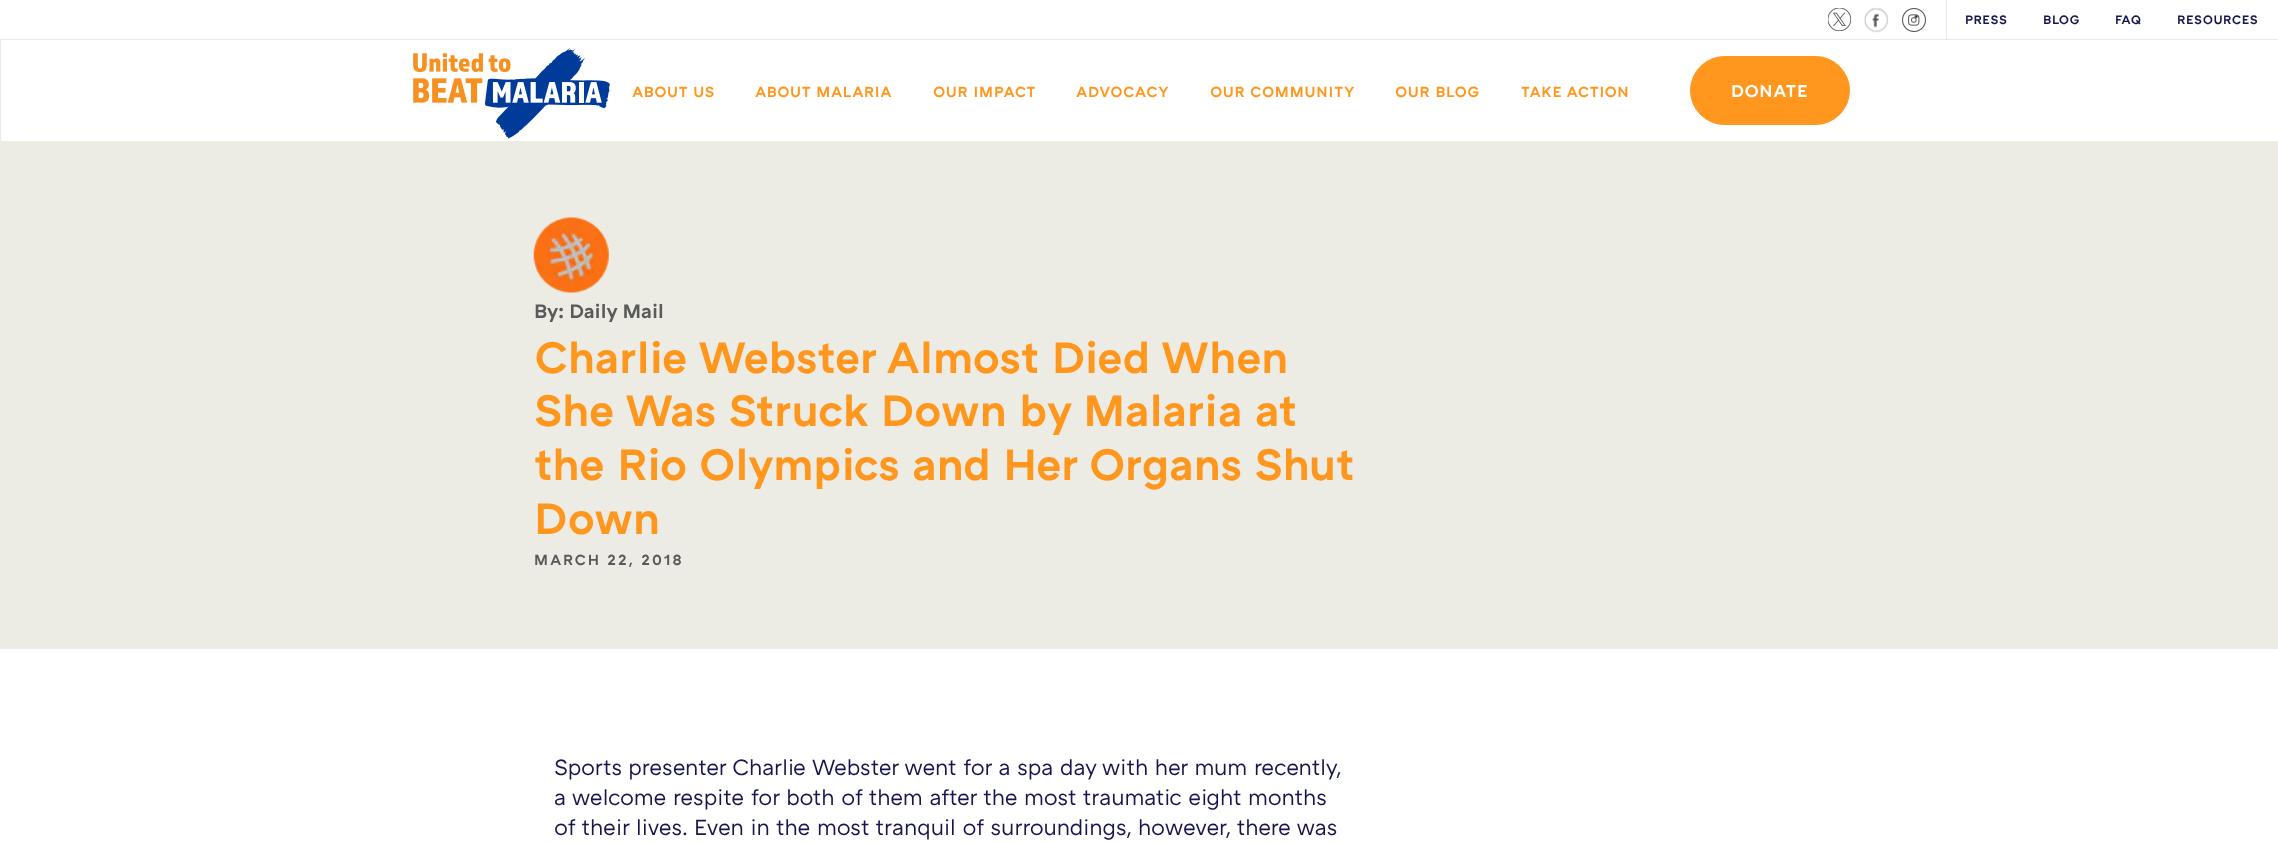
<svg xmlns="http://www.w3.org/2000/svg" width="2278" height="842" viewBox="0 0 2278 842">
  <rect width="100%" height="100%" fill="#edece4"/>
  <rect x="0" y="0" width="2278" height="39" fill="#ffffff"/>
  <rect x="0" y="39" width="2278" height="1" fill="#e9e9e9"/>
  <image x="1828" y="8" width="23" height="23" href="img1.png"/>
  <image x="1864" y="7" width="25" height="26" href="img2.png"/>
  <rect x="1946" y="0" width="1" height="39" fill="#e9e9e9"/>
  <image x="1902" y="8" width="24" height="24" href="img3.png"/>
  <text x="1965" y="24" font-family="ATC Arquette" font-size="12.5" font-weight="600" letter-spacing="0.75" fill="#17154c">PRESS</text>
  <text x="2043" y="24" font-family="ATC Arquette" font-size="12.5" font-weight="600" letter-spacing="0.75" fill="#17154c">BLOG</text>
  <text x="2115" y="24" font-family="ATC Arquette" font-size="12.5" font-weight="600" letter-spacing="0.75" fill="#17154c">FAQ</text>
  <text x="2177" y="24" font-family="ATC Arquette" font-size="12.5" font-weight="600" letter-spacing="0.75" fill="#17154c">RESOURCES</text>
  <rect x="1" y="40" width="2277" height="101" fill="#ffffff"/>
  <image x="413" y="48" width="197" height="91" href="img4.png"/>
  <text x="632" y="97" font-family="ATC Arquette" font-size="15" font-weight="600" letter-spacing="0.9" fill="#ff971f">ABOUT US</text>
  <text x="755" y="97" font-family="ATC Arquette" font-size="15" font-weight="600" letter-spacing="0.9" fill="#ff971f">ABOUT MALARIA</text>
  <text x="933" y="97" font-family="ATC Arquette" font-size="15" font-weight="600" letter-spacing="0.9" fill="#ff971f">OUR IMPACT</text>
  <text x="1076" y="97" font-family="ATC Arquette" font-size="15" font-weight="600" letter-spacing="0.9" fill="#ff971f">ADVOCACY</text>
  <text x="1210" y="97" font-family="ATC Arquette" font-size="15" font-weight="600" letter-spacing="0.9" fill="#ff971f">OUR COMMUNITY</text>
  <text x="1395" y="97" font-family="ATC Arquette" font-size="15" font-weight="600" letter-spacing="0.9" fill="#ff971f">OUR BLOG</text>
  <text x="1521" y="97" font-family="ATC Arquette" font-size="15" font-weight="600" letter-spacing="0.9" fill="#ff971f">TAKE ACTION</text>
  <rect x="1690.5" y="56.5" width="159" height="68" rx="34" fill="#ff971f" stroke="#ff971f"/>
  <text x="1731" y="97" font-family="ATC Arquette" font-size="17.5" font-weight="600" letter-spacing="0.9" fill="#ffffff">DONATE</text>
  <image x="533" y="217" width="76" height="76" href="img5.png"/>
  <text x="534" y="318" font-family="ATC Arquette" font-size="20" font-weight="600" fill="#5a5a5a">By: Daily Mail</text>
  <text x="534" y="373" font-family="ATC Arquette" font-size="45" font-weight="600" fill="#ff971f">Charlie Webster Almost Died When</text>
  <text x="534" y="426" font-family="ATC Arquette" font-size="45" font-weight="600" fill="#ff971f">She Was Struck Down by Malaria at</text>
  <text x="534" y="480" font-family="ATC Arquette" font-size="45" font-weight="600" fill="#ff971f">the Rio Olympics and Her Organs Shut</text>
  <text x="534" y="534" font-family="ATC Arquette" font-size="45" font-weight="600" fill="#ff971f">Down</text>
  <text x="534" y="565" font-family="ATC Arquette" font-size="15" font-weight="600" letter-spacing="2.1" fill="#5a5a5a">MARCH 22, 2018</text>
  <rect x="0" y="649" width="2278" height="193" fill="#ffffff"/>
  <text x="554" y="775" font-family="ATC Arquette" font-size="22.5" fill="#17154c">Sports presenter Charlie Webster went for a spa day with her mum recently,</text>
  <text x="554" y="805" font-family="ATC Arquette" font-size="22.5" fill="#17154c">a welcome respite for both of them after the most traumatic eight months</text>
  <text x="554" y="835" font-family="ATC Arquette" font-size="22.5" fill="#17154c">of their lives. Even in the most tranquil of surroundings, however, there was</text>
</svg>
